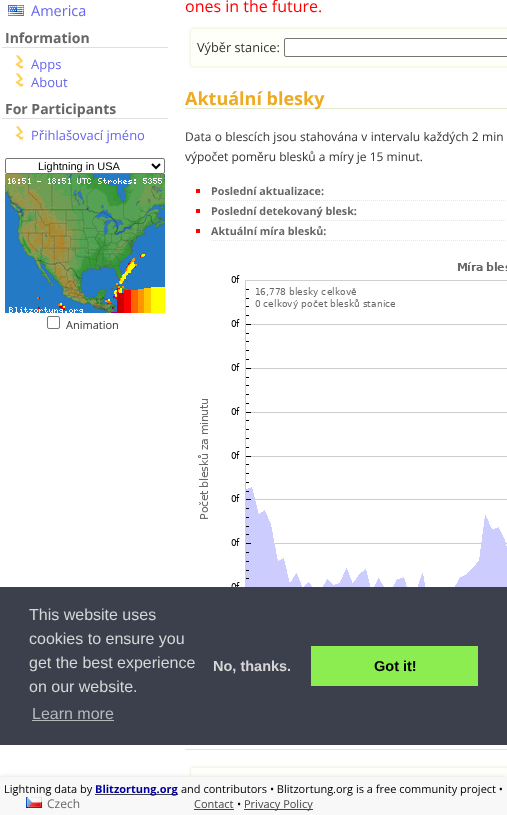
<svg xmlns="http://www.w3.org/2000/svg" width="507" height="815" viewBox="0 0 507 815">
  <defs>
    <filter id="blur1" x="-50%" y="-200%" width="200%" height="500%"><feGaussianBlur stdDeviation="1.5"/></filter>
    <filter id="blur2" x="-50%" y="-200%" width="200%" height="500%"><feGaussianBlur stdDeviation="2.5"/></filter>
  </defs>
  <rect width="100%" height="100%" fill="#ffffff"/>
  <image x="8" y="5" width="16" height="11" href="img1.png"/>
  <text x="31" y="16" font-family="Open Sans" font-size="14.5" fill="#6666ee">America</text>
  <rect x="2" y="47" width="166" height="1" fill="#e0e0e0"/>
  <text x="5" y="43" font-family="Open Sans" font-size="14" font-weight="bold" fill="#666666">Information</text>
  <image x="15" y="55" width="9" height="14" href="img2.png"/>
  <text x="31" y="69" font-family="Open Sans" font-size="13" fill="#6666ee">Apps</text>
  <image x="15" y="73" width="9" height="14" href="img2.png"/>
  <text x="31" y="87" font-family="Open Sans" font-size="13" fill="#6666ee">About</text>
  <rect x="2" y="118" width="166" height="1" fill="#e0e0e0"/>
  <text x="5" y="114" font-family="Open Sans" font-size="14" font-weight="bold" fill="#666666">For Participants</text>
  <image x="15" y="126" width="9" height="14" href="img2.png"/>
  <text x="31" y="140" font-family="Open Sans" font-size="13" fill="#6666ee">Přihlašovací jméno</text>
  <rect x="5.5" y="158.5" width="159" height="15" rx="1.5" fill="none" stroke="#767676"/>
  <path d="M152 164L156 168L160 164" fill="none" stroke="#000000" stroke-width="2"/>
  <text x="38" y="170" font-family="Liberation Sans" font-size="11" fill="#000000">Lightning in USA</text>
  <image x="5" y="174" width="160" height="139" href="img3.png"/>
  <rect x="47.5" y="316.5" width="12" height="12" rx="1.5" fill="none" stroke="#767676"/>
  <text x="66" y="329" font-family="Open Sans" font-size="11" fill="#333333">Animation</text>
  <text x="185" y="12" font-family="Open Sans" font-size="16" fill="#ff0000">ones in the future.</text>
  <rect x="190" y="28" width="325" height="39" rx="3" fill="#f2efdf" filter="url(#blur1)"/>
  <rect x="191" y="29" width="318" height="37" rx="2" fill="#fffffa"/>
  <text x="197" y="52" font-family="Open Sans" font-size="12.75" fill="#333333">Výběr stanice:</text>
  <rect x="284.5" y="38.5" width="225" height="18" rx="1.5" fill="#ffffff" stroke="#767676"/>
  <rect x="185" y="108" width="322" height="1" fill="#e7e7cc"/>
  <text x="185" y="105" font-family="Open Sans" font-size="18" font-weight="bold" fill="#eeaa22">Aktuální blesky</text>
  <text x="185" y="141" word-spacing="0.25" font-family="Open Sans" font-size="12" fill="#333333">Data o blescích jsou stahována v intervalu každých 2 min</text>
  <text x="185" y="161" font-family="Open Sans" font-size="12" fill="#333333">výpočet poměru blesků a míry je 15 minut.</text>
  <path d="M211 200.5H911" fill="none" stroke="#e7e7e7" stroke-dasharray="1 1"/>
  <rect x="196" y="189" width="4" height="4" fill="#ff0000"/>
  <text x="211" y="195" font-family="Open Sans" font-size="10.75" font-weight="bold" fill="#666666">Poslední aktualizace:</text>
  <path d="M211 220.5H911" fill="none" stroke="#e7e7e7" stroke-dasharray="1 1"/>
  <rect x="196" y="209" width="4" height="4" fill="#ff0000"/>
  <text x="211" y="215" font-family="Open Sans" font-size="10.75" font-weight="bold" fill="#666666">Poslední detekovaný blesk:</text>
  <path d="M211 240.5H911" fill="none" stroke="#e7e7e7" stroke-dasharray="1 1"/>
  <rect x="196" y="229" width="4" height="4" fill="#ff0000"/>
  <text x="211" y="235" font-family="Open Sans" font-size="10.75" font-weight="bold" fill="#666666">Aktuální míra blesků:</text>
  <image x="198" y="262" width="309" height="325" href="img4.png"/>
  <rect x="185" y="749" width="322" height="1" fill="#e7e7cc"/>
  <rect x="190" y="767" width="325" height="39" rx="3" fill="#f2efdf" filter="url(#blur1)"/>
  <rect x="191" y="768" width="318" height="37" rx="2" fill="#fffffa"/>
  <rect x="0" y="777" width="507" height="38" fill="#dddddd" filter="url(#blur2)"/>
  <rect x="0" y="777" width="507" height="38" fill="#f8f8f8"/>
  <text x="4" y="793" font-family="Open Sans" font-size="11" fill="#000000">Lightning data by</text>
  <rect x="95" y="794" width="83" height="1" fill="#444444"/>
  <text x="95" y="793" font-family="Open Sans" font-size="11" font-weight="bold" fill="#000099">Blitzortung.org</text>
  <text x="181" y="793" font-family="Open Sans" font-size="11" fill="#000000">and contributors • Blitzortung.org is a free community project •</text>
  <text x="194" y="808" font-family="Open Sans" font-size="11" fill="#444444">Contact</text>
  <rect x="194" y="809" width="40" height="1" fill="#444444"/>
  <text x="237" y="808" font-family="Open Sans" font-size="11" fill="#000000">•</text>
  <rect x="244" y="809" width="69" height="1" fill="#444444"/>
  <text x="244" y="808" font-family="Open Sans" font-size="11" fill="#444444">Privacy Policy</text>
  <image x="26" y="797" width="16" height="11" href="img5.png"/>
  <text x="47" y="808" font-family="Open Sans" font-size="12" fill="#666666">Czech</text>
  <rect x="0" y="587" width="507" height="158" fill="#3c404d"/>
  <text x="29" y="620" font-family="Liberation Sans" font-size="16" fill="#d6d6d6">This website uses</text>
  <text x="29" y="644" font-family="Liberation Sans" font-size="16" fill="#d6d6d6">cookies to ensure you</text>
  <text x="29" y="668" font-family="Liberation Sans" font-size="16" fill="#d6d6d6">get the best experience</text>
  <text x="29" y="692" font-family="Liberation Sans" font-size="16" fill="#d6d6d6">on our website.</text>
  <text x="32" y="719" font-family="Liberation Sans" font-size="16" fill="#b7b8bb">Learn more</text>
  <rect x="32" y="720" width="82" height="1" fill="#b7b8bb"/>
  <text x="213" y="671" font-family="Liberation Sans" font-size="14.5" font-weight="bold" fill="#d6d6d6">No, thanks.</text>
  <rect x="311" y="646" width="167" height="40" fill="#8bed4f"/>
  <text x="374" y="671" font-family="Liberation Sans" font-size="14.5" font-weight="bold" fill="#000000">Got it!</text>
</svg>
